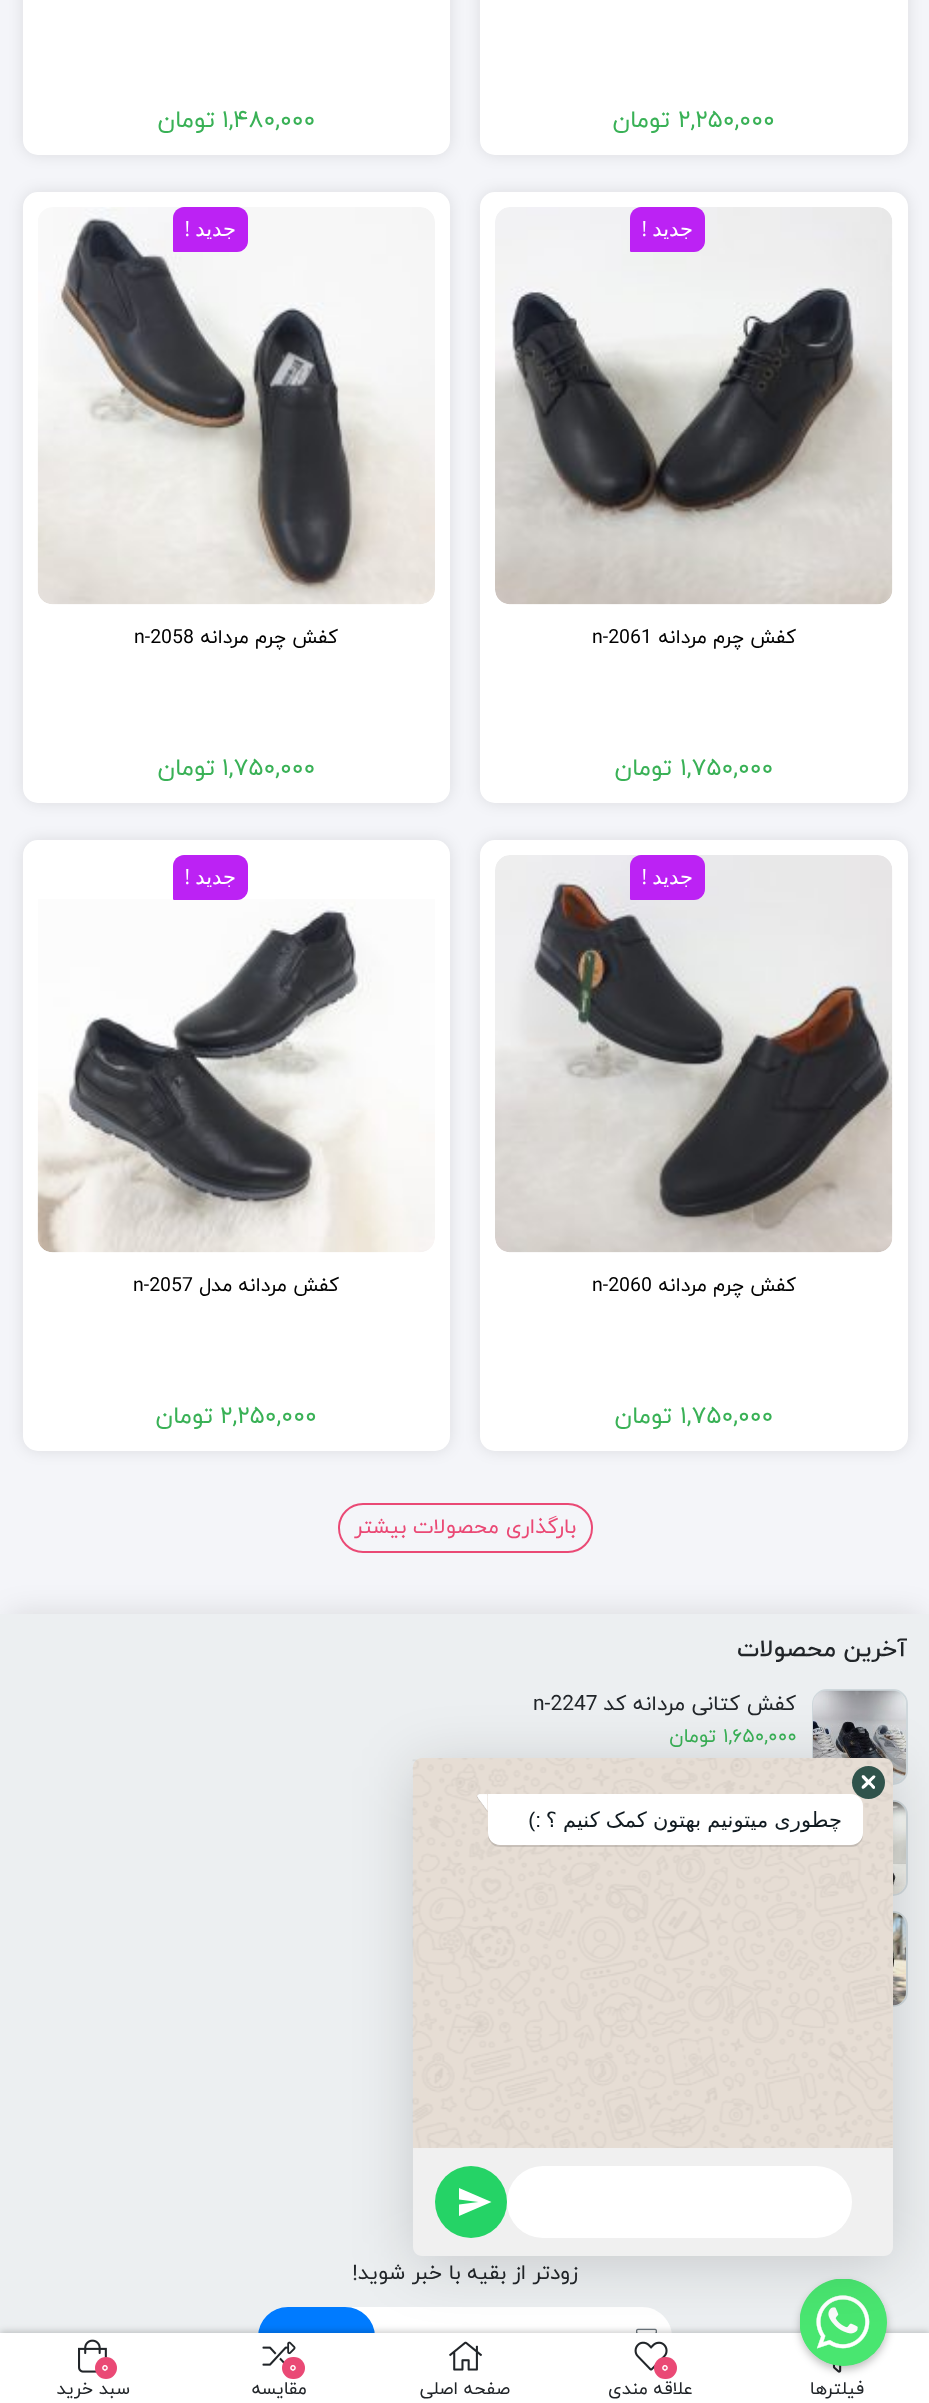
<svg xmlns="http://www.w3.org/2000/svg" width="929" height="2403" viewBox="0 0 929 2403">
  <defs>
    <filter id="blur1" x="-50%" y="-200%" width="200%" height="500%"><feGaussianBlur stdDeviation="7.5"/></filter>
    <filter id="blur2" x="-50%" y="-200%" width="200%" height="500%"><feGaussianBlur stdDeviation="15"/></filter>
    <filter id="blur3" x="-50%" y="-200%" width="200%" height="500%"><feGaussianBlur stdDeviation="3"/></filter>
    <filter id="blur4" x="-50%" y="-200%" width="200%" height="500%"><feGaussianBlur stdDeviation="4.5"/></filter>
    <filter id="blur5" x="-50%" y="-200%" width="200%" height="500%"><feGaussianBlur stdDeviation="30"/></filter>
    <filter id="blur6" x="-50%" y="-200%" width="200%" height="500%"><feGaussianBlur stdDeviation="0.5"/></filter>
  </defs>
  <rect width="100%" height="100%" fill="#f4f5f9"/>
  <rect x="480" y="-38" width="428" height="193" rx="15" fill="#000000" fill-opacity="0.1" filter="url(#blur1)"/>
  <rect x="480" y="-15" width="428" height="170" rx="15" fill="#ffffff"/>
  <text x="678" y="127" font-family="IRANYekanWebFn" font-size="24" fill="#39b156">۲,۲۵۰,۰۰۰</text>
  <text x="670" y="127" font-family="IRANYekanWebFn" font-size="24" direction="rtl" fill="#39b156">تومان</text>
  <rect x="23" y="-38" width="427" height="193" rx="15" fill="#000000" fill-opacity="0.1" filter="url(#blur1)"/>
  <rect x="23" y="-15" width="427" height="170" rx="15" fill="#ffffff"/>
  <text x="222" y="127" font-family="IRANYekanWebFn" font-size="24" fill="#39b156">۱,۴۸۰,۰۰۰</text>
  <text x="215" y="127" font-family="IRANYekanWebFn" font-size="24" direction="rtl" fill="#39b156">تومان</text>
  <rect x="480" y="192" width="428" height="611" rx="15" fill="#000000" fill-opacity="0.1" filter="url(#blur1)"/>
  <rect x="480" y="192" width="428" height="611" rx="15" fill="#ffffff"/>
  <image x="495" y="207" width="398" height="398" href="img1.png"/>
  <path d="M641 207H694C700 207 705 212 705 218V241C705 247 700 252 694 252H631.5C630.5 252 630 251.5 630 250.5V218C630 212 635 207 641 207Z" fill="#bc22f4"/>
  <text x="693" y="236" font-family="DejaVu Sans" font-size="21" direction="rtl" fill="#ffffff">جدید</text>
  <text x="647" y="236" font-family="Open Sans" font-size="21" direction="rtl" fill="#ffffff">!</text>
  <text x="796" y="643" font-family="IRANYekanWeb" font-size="19.5" direction="rtl" fill="#000000">کفش چرم مردانه</text>
  <text x="592" y="643" font-family="IRANYekanWeb" font-size="19.5" fill="#000000">n-2061</text>
  <text x="680" y="775" font-family="IRANYekanWebFn" font-size="24" fill="#39b156">۱,۷۵۰,۰۰۰</text>
  <text x="672" y="775" font-family="IRANYekanWebFn" font-size="24" direction="rtl" fill="#39b156">تومان</text>
  <rect x="23" y="192" width="427" height="611" rx="15" fill="#000000" fill-opacity="0.1" filter="url(#blur1)"/>
  <rect x="23" y="192" width="427" height="611" rx="15" fill="#ffffff"/>
  <image x="37" y="207" width="398" height="398" href="img2.png"/>
  <path d="M184 207H237C243 207 248 212 248 218V241C248 247 243 252 237 252H174.5C173.5 252 173 251.5 173 250.5V218C173 212 178 207 184 207Z" fill="#bc22f4"/>
  <text x="236" y="236" font-family="DejaVu Sans" font-size="21" direction="rtl" fill="#ffffff">جدید</text>
  <text x="190" y="236" font-family="Open Sans" font-size="21" direction="rtl" fill="#ffffff">!</text>
  <text x="338" y="643" font-family="IRANYekanWeb" font-size="19.5" direction="rtl" fill="#000000">کفش چرم مردانه</text>
  <text x="134" y="643" font-family="IRANYekanWeb" font-size="19.5" fill="#000000">n-2058</text>
  <text x="222" y="775" font-family="IRANYekanWebFn" font-size="24" fill="#39b156">۱,۷۵۰,۰۰۰</text>
  <text x="215" y="775" font-family="IRANYekanWebFn" font-size="24" direction="rtl" fill="#39b156">تومان</text>
  <rect x="480" y="840" width="428" height="611" rx="15" fill="#000000" fill-opacity="0.1" filter="url(#blur1)"/>
  <rect x="480" y="840" width="428" height="611" rx="15" fill="#ffffff"/>
  <image x="495" y="855" width="398" height="398" href="img3.png"/>
  <path d="M641 855H694C700 855 705 860 705 866V889C705 895 700 900 694 900H631.5C630.5 900 630 899.5 630 898.5V866C630 860 635 855 641 855Z" fill="#bc22f4"/>
  <text x="693" y="884" font-family="DejaVu Sans" font-size="21" direction="rtl" fill="#ffffff">جدید</text>
  <text x="647" y="884" font-family="Open Sans" font-size="21" direction="rtl" fill="#ffffff">!</text>
  <text x="796" y="1291" font-family="IRANYekanWeb" font-size="19.5" direction="rtl" fill="#000000">کفش چرم مردانه</text>
  <text x="592" y="1291" font-family="IRANYekanWeb" font-size="19.5" fill="#000000">n-2060</text>
  <text x="680" y="1423" font-family="IRANYekanWebFn" font-size="24" fill="#39b156">۱,۷۵۰,۰۰۰</text>
  <text x="672" y="1423" font-family="IRANYekanWebFn" font-size="24" direction="rtl" fill="#39b156">تومان</text>
  <rect x="23" y="840" width="427" height="611" rx="15" fill="#000000" fill-opacity="0.1" filter="url(#blur1)"/>
  <rect x="23" y="840" width="427" height="611" rx="15" fill="#ffffff"/>
  <image x="37" y="899" width="398" height="354" href="img4.png"/>
  <path d="M184 855H237C243 855 248 860 248 866V889C248 895 243 900 237 900H174.5C173.5 900 173 899.5 173 898.5V866C173 860 178 855 184 855Z" fill="#bc22f4"/>
  <text x="236" y="884" font-family="DejaVu Sans" font-size="21" direction="rtl" fill="#ffffff">جدید</text>
  <text x="190" y="884" font-family="Open Sans" font-size="21" direction="rtl" fill="#ffffff">!</text>
  <text x="339" y="1291" font-family="IRANYekanWeb" font-size="19.5" direction="rtl" fill="#000000">کفش مردانه مدل</text>
  <text x="133" y="1291" font-family="IRANYekanWeb" font-size="19.5" fill="#000000">n-2057</text>
  <text x="220" y="1423" font-family="IRANYekanWebFn" font-size="24" fill="#39b156">۲,۲۵۰,۰۰۰</text>
  <text x="213" y="1423" font-family="IRANYekanWebFn" font-size="24" direction="rtl" fill="#39b156">تومان</text>
  <rect x="339" y="1504" width="253" height="48" rx="24" fill="none" stroke="#ea4975" stroke-width="2"/>
  <text x="576" y="1533" font-family="IRANYekanWeb" font-size="21" direction="rtl" fill="#ea4975">بارگذاری محصولات بیشتر</text>
  <rect x="9" y="1614" width="912" height="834" fill="#000000" fill-opacity="0.12" filter="url(#blur2)"/>
  <rect x="0" y="1614" width="929" height="719" fill="#eceff1"/>
  <text x="907" y="1656" font-family="IRANYekanWeb" font-size="24" font-weight="500" direction="rtl" fill="#212529">آخرین محصولات</text>
  <rect x="813" y="1690" width="94" height="94" rx="14" fill="none" stroke="#cfd8dc" stroke-width="2"/>
  <image x="813" y="1690" width="93" height="93" href="img5.png"/>
  <text x="796" y="1710" font-family="IRANYekanWeb" font-size="21" direction="rtl" fill="#212529">کفش کتانی مردانه کد</text>
  <text x="533" y="1710" font-family="IRANYekanWeb" font-size="21" fill="#212529">n-2247</text>
  <text x="723" y="1742" font-family="IRANYekanWebFn" font-size="19.5" fill="#39b156">۱,۶۵۰,۰۰۰</text>
  <text x="716" y="1742" font-family="IRANYekanWebFn" font-size="19.5" direction="rtl" fill="#39b156">تومان</text>
  <rect x="813" y="1801" width="94" height="94" rx="14" fill="none" stroke="#cfd8dc" stroke-width="2"/>
  <image x="893" y="1801" width="13" height="94" href="img6.png"/>
  <rect x="813" y="1912" width="94" height="94" rx="14" fill="none" stroke="#cfd8dc" stroke-width="2"/>
  <image x="893" y="1912" width="13" height="94" href="img7.png"/>
  <text x="578" y="2279" font-family="IRANYekanWeb" font-size="21" direction="rtl" fill="#212529">زودتر از بقیه با خبر شوید!</text>
  <path d="M620 2307H642C658.5 2307 672 2320.5 672 2337C672 2353.5 658.5 2367 642 2367H620Z" fill="#ffffff"/>
  <image x="636" y="2328" width="21" height="5" href="img8.png"/>
  <rect x="375" y="2307" width="245" height="26" fill="#ffffff"/>
  <path d="M288 2307H375V2367H288C271.5 2367 258 2353.5 258 2337C258 2320.5 271.5 2307 288 2307Z" fill="#ffffff"/>
  <rect x="259" y="2308" width="115" height="58" rx="29" fill="#007bff" stroke="#007bff" stroke-width="2"/>
  <rect x="0" y="2331" width="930" height="71" fill="#000000" fill-opacity="0.19" filter="url(#blur3)"/>
  <rect x="0" y="2333" width="929" height="70" fill="#ffffff"/>
  <image x="832" y="2364" width="10" height="9" href="img12.png"/>
  <rect x="800" y="2283" width="87" height="87" rx="43.5" fill="#000000" fill-opacity="0.25" filter="url(#blur4)"/>
  <circle cx="843.5" cy="2322.5" r="43.5" fill="#49e670"/>
  <image x="800" y="2279" width="87" height="87" href="img11.png"/>
  <image x="634" y="2341" width="34" height="30" href="img13.png"/>
  <image x="449" y="2341" width="33" height="30" href="img14.png"/>
  <rect x="413" y="1766" width="480" height="498" rx="9" fill="#000000" fill-opacity="0.16" filter="url(#blur5)"/>
  <path d="M422 1758H884C889 1758 893 1762 893 1767V2148H413V1767C413 1762 417 1758 422 1758Z" fill="#e6ddd4"/>
  <image x="412" y="1758" width="481" height="390" href="img9.png"/>
  <circle cx="868.5" cy="1782.5" r="16.5" fill="#30534b"/>
  <path d="M864.5 1775.5L875 1786.5V1788C874 1790.5 871.5 1787.5 871 1786.5L865.5 1781.5C865 1780.5 860.5 1777.5 862 1775.5C862.5 1775 863.5 1775 864.5 1775.5Z" fill="#ffffff"/>
  <path d="M862 1786L873 1775.5H874.5C877 1776.5 874 1779 873 1779.5L868 1785C867 1785.5 864 1790 862 1788.5C861.5 1788 861.5 1787 862 1786Z" fill="#ffffff"/>
  <rect x="488" y="1796" width="375" height="51" rx="12" fill="#000000" fill-opacity="0.13" filter="url(#blur6)"/>
  <path d="M488 1794H851C857.5 1794 863 1799.5 863 1806V1833C863 1839.5 857.5 1845 851 1845H500C493.5 1845 488 1839.5 488 1833Z" fill="#ffffff"/>
  <image x="476" y="1794" width="12" height="18" href="img10.png"/>
  <text x="842" y="1827" word-spacing="-0.5" font-family="DejaVu Sans" font-size="21" direction="rtl" fill="#111b21">چطوری میتونیم بهتون کمک کنیم ؟</text>
  <text x="541" y="1827" font-family="Liberation Sans" font-size="21" direction="rtl" fill="#111b21">:)</text>
  <path d="M413 2148H893V2247C893 2252 889 2256 884 2256H422C417 2256 413 2252 413 2247Z" fill="#f0f0f0"/>
  <rect x="507" y="2166" width="345" height="72" rx="36" fill="#ffffff"/>
  <circle cx="471" cy="2202" r="36" fill="#25d366"/>
  <path d="M459 2216L491.5 2202L459 2188V2199.5L478.5 2202L459 2204.5Z" fill="#ffffff"/>
  <text x="864" y="2394" font-family="IRANYekanWeb" font-size="18" direction="rtl" fill="#212529">فیلترها</text>
  <rect x="654" y="2357" width="23" height="22" rx="11" fill="#ea4975"/>
  <text x="661" y="2372" font-family="IRANYekanWebFn" font-size="16" fill="#ffffff">0</text>
  <text x="693" y="2394" font-family="IRANYekanWeb" font-size="18" direction="rtl" fill="#212529">علاقه مندی</text>
  <text x="510" y="2394" font-family="IRANYekanWeb" font-size="18" direction="rtl" fill="#212529">صفحه اصلی</text>
  <image x="262" y="2341" width="34" height="25" href="img15.png"/>
  <rect x="282" y="2357" width="23" height="22" rx="11" fill="#ea4975"/>
  <text x="289" y="2372" font-family="IRANYekanWebFn" font-size="16" fill="#ffffff">0</text>
  <text x="307" y="2394" font-family="IRANYekanWeb" font-size="18" direction="rtl" fill="#212529">مقایسه</text>
  <image x="78" y="2339" width="29" height="34" href="img16.png"/>
  <circle cx="106" cy="2368" r="11" fill="#ea4975"/>
  <text x="101" y="2372" font-family="IRANYekanWebFn" font-size="16" fill="#ffffff">0</text>
  <text x="130" y="2394" font-family="IRANYekanWeb" font-size="18" direction="rtl" fill="#212529">سبد خرید</text>
</svg>
